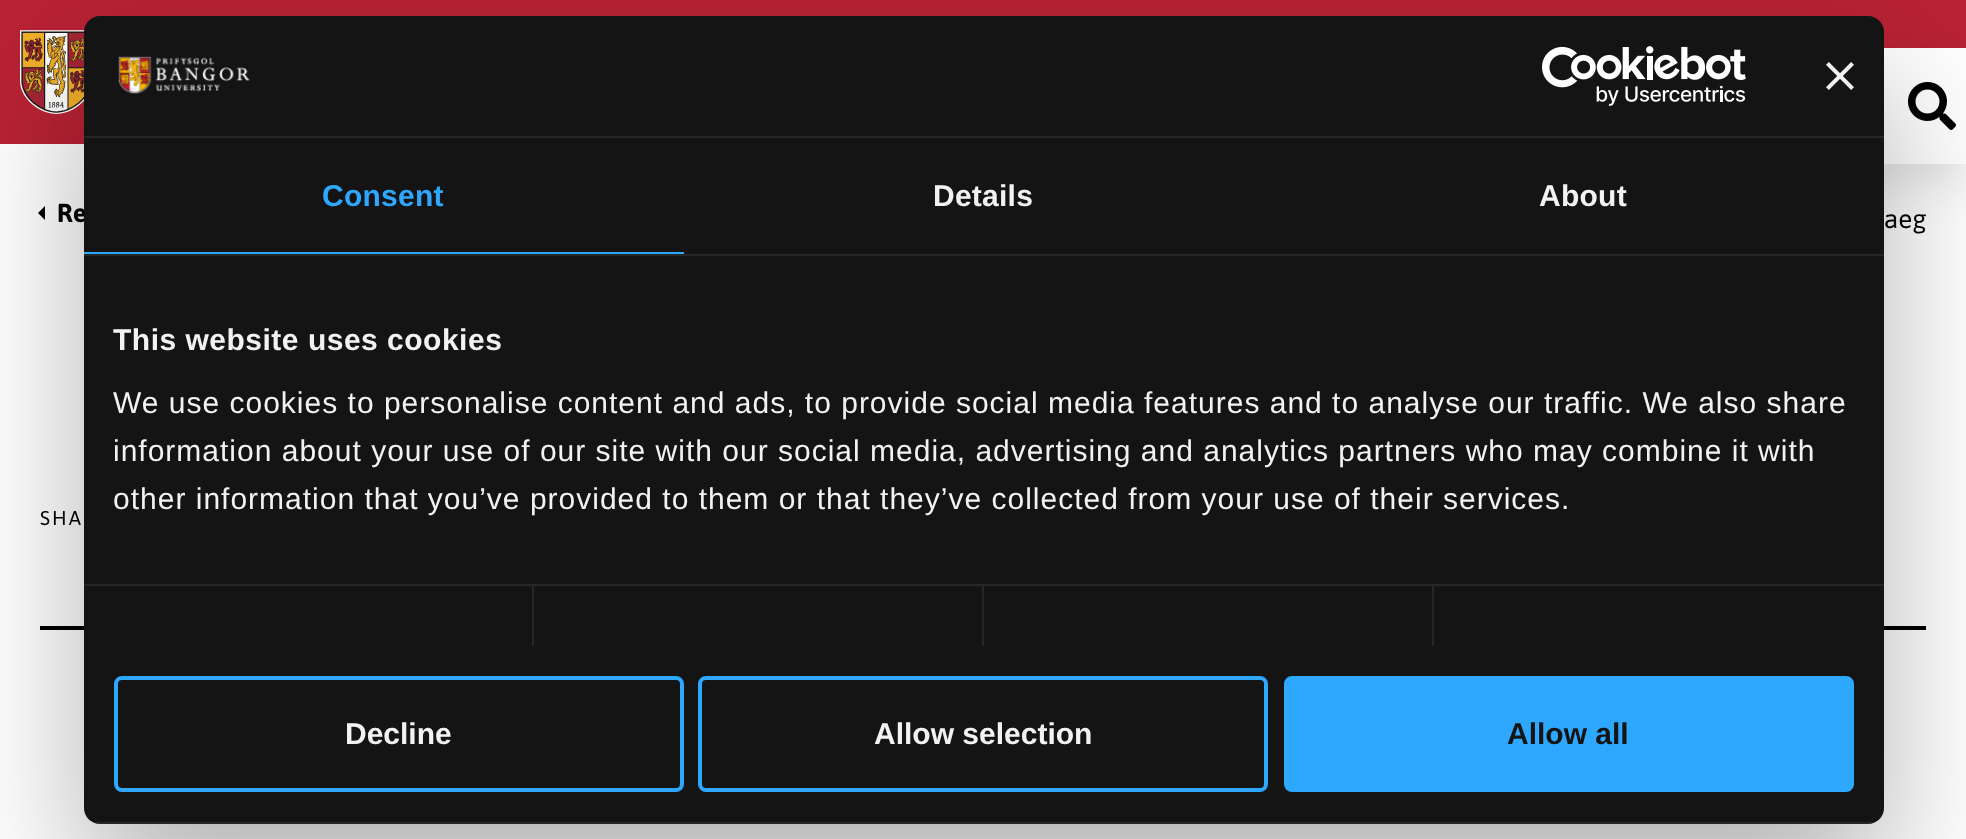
<svg xmlns="http://www.w3.org/2000/svg" width="1966" height="839" viewBox="0 0 1966 839">
  <defs>
    <filter id="blur1" x="-50%" y="-200%" width="200%" height="500%"><feGaussianBlur stdDeviation="20"/></filter>
    <filter id="blur2" x="-50%" y="-200%" width="200%" height="500%"><feGaussianBlur stdDeviation="68"/></filter>
    <clipPath id="clip1"><rect x="84" y="16" width="1800" height="808" rx="16"/></clipPath>
  </defs>
  <rect width="100%" height="100%" fill="#ffffff"/>
  <rect x="0" y="0" width="1966" height="144" fill="#b82234"/>
  <image x="20" y="30" width="65" height="84" href="img4.png"/>
  <rect x="1812" y="68" width="154" height="116" fill="#000000" fill-opacity="0.1" filter="url(#blur1)"/>
  <rect x="1884" y="48" width="82" height="116" fill="#ffffff"/>
  <image x="1908" y="82" width="48" height="48" href="img5.png"/>
  <path d="M38 213L45 206V220Z" fill="#000000"/>
  <rect x="40" y="626" width="1886" height="4" fill="#000000"/>
  <rect x="84" y="80" width="1800" height="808" rx="16" fill="#000000" fill-opacity="0.3" filter="url(#blur2)"/>
  <text x="57" y="222" font-family="Asap" font-size="26" font-weight="bold" fill="#000000">Re</text>
  <rect x="84" y="16" width="1800" height="808" rx="16" fill="#141414"/>
  <rect x="84" y="136" width="1800" height="2" fill="#272727"/>
  <image x="118" y="56" width="132" height="38" href="img1.png"/>
  <image x="1542" y="46" width="204" height="60" href="img2.png"/>
  <image x="1826" y="62" width="28" height="28" href="img3.png"/>
  <rect x="84" y="254" width="1800" height="2" fill="#272727"/>
  <rect x="84" y="252" width="600" height="2" fill="#2ea7ff"/>
  <text x="322" y="206" font-family="Liberation Sans" font-size="30" font-weight="bold" letter-spacing="0.25" fill="#2ea7ff">Consent</text>
  <text x="933" y="206" font-family="Liberation Sans" font-size="30" font-weight="bold" letter-spacing="0.25" fill="#f2f2f2">Details</text>
  <text x="1539" y="206" font-family="Liberation Sans" font-size="30" font-weight="bold" letter-spacing="0.25" fill="#f2f2f2">About</text>
  <rect x="84" y="584" width="1800" height="2" fill="#272727"/>
  <text x="113" y="350" font-family="Liberation Sans" font-size="30" font-weight="bold" letter-spacing="0.5" fill="#f2f2f2">This website uses cookies</text>
  <text x="113" y="413" font-family="Liberation Sans" font-size="30" letter-spacing="1" fill="#f2f2f2">We use cookies to personalise content and ads, to provide social media features and to analyse our traffic. We also share</text>
  <text x="113" y="461" font-family="Liberation Sans" font-size="30" letter-spacing="1" fill="#f2f2f2">information about your use of our site with our social media, advertising and analytics partners who may combine it with</text>
  <text x="113" y="509" font-family="Liberation Sans" font-size="30" letter-spacing="1" fill="#f2f2f2">other information that you’ve provided to them or that they’ve collected from your use of their services.</text>
  <rect x="532" y="586" width="2" height="60" fill="#272727"/>
  <rect x="982" y="586" width="2" height="60" fill="#272727"/>
  <rect x="1432" y="586" width="2" height="60" fill="#272727"/>
  <g clip-path="url(#clip1)">
    <rect x="93" y="822" width="1782" height="2" fill="#ffffff" fill-opacity="0.08"/>
  </g>
  <rect x="116" y="678" width="566" height="112" rx="6" fill="none" stroke="#2ea7ff" stroke-width="4"/>
  <text x="345" y="744" font-family="Liberation Sans" font-size="30" font-weight="bold" fill="#f2f2f2">Decline</text>
  <rect x="700" y="678" width="566" height="112" rx="6" fill="none" stroke="#2ea7ff" stroke-width="4"/>
  <text x="874" y="744" font-family="Liberation Sans" font-size="30" font-weight="bold" fill="#f2f2f2">Allow selection</text>
  <rect x="1286" y="678" width="566" height="112" rx="6" fill="#2ea7ff" stroke="#2ea7ff" stroke-width="4"/>
  <text x="1507" y="744" font-family="Liberation Sans" font-size="30" font-weight="bold" fill="#141414">Allow all</text>
  <text x="1884" y="228" font-family="Asap" font-size="26" fill="#000000">aeg</text>
  <text x="40" y="525" font-family="Asap" font-size="20" letter-spacing="2" fill="#000000">SHA</text>
</svg>
